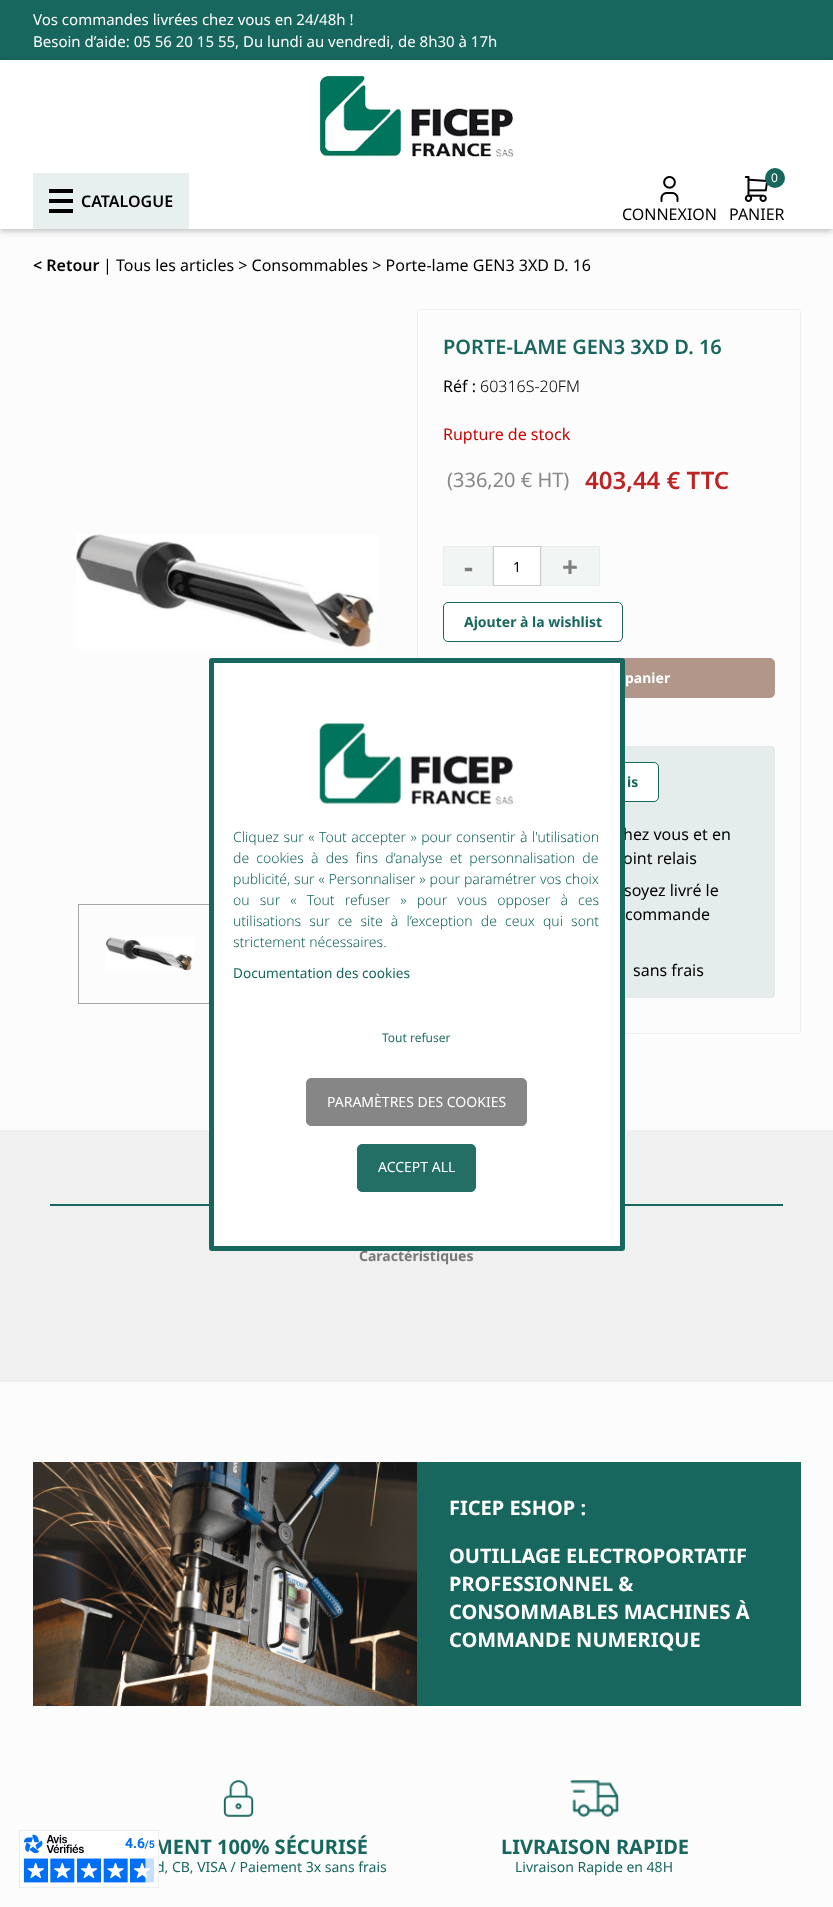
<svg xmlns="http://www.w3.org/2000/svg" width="833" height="1907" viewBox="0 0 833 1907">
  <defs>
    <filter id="blur1" x="-50%" y="-200%" width="200%" height="500%"><feGaussianBlur stdDeviation="3"/></filter>
  </defs>
  <rect width="100%" height="100%" fill="#fcfcfc"/>
  <rect x="0" y="0" width="833" height="60" fill="#17675e"/>
  <text x="33" y="25" font-family="Noto Sans" font-size="15" fill="#ffffff">Vos commandes livrées chez vous en 24/48h !</text>
  <text x="33" y="47" font-family="Noto Sans" font-size="15" fill="#ffffff">Besoin d’aide: 05 56 20 15 55, Du lundi au vendredi, de 8h30 à 17h</text>
  <rect x="0" y="62" width="833" height="169" fill="#000000" fill-opacity="0.25" filter="url(#blur1)"/>
  <rect x="0" y="60" width="833" height="169" fill="#ffffff"/>
  <image x="320" y="76" width="193" height="81" href="img1.png"/>
  <rect x="33" y="173" width="156" height="56" fill="#e8f0ef"/>
  <rect x="49" y="189" width="24" height="4" fill="#000000"/>
  <rect x="49" y="199" width="24" height="4" fill="#000000"/>
  <rect x="49" y="209" width="24" height="4" fill="#000000"/>
  <text x="81" y="207" font-family="Noto Sans" font-size="16" font-weight="600" fill="#000000">CATALOGUE</text>
  <image x="660" y="176" width="19" height="26" href="img2.png"/>
  <text x="622" y="220" font-family="Noto Sans" font-size="16" fill="#000000">CONNEXION</text>
  <image x="744" y="176" width="24" height="26" href="img3.png"/>
  <circle cx="775" cy="178" r="10" fill="#17675e"/>
  <text x="771" y="182" font-family="Noto Sans" font-size="12" fill="#ffffff">0</text>
  <text x="729" y="220" font-family="Noto Sans" font-size="16" fill="#000000">PANIER</text>
  <text x="33" y="271" font-family="Noto Sans" font-size="16" font-weight="600" fill="#000000">&lt; Retour</text>
  <text x="103" y="271" font-family="Noto Sans" font-size="16" fill="#000000">| Tous les articles &gt; Consommables &gt; Porte-lame GEN3 3XD D. 16</text>
  <image x="76" y="534" width="301" height="115" href="img4.png"/>
  <rect x="78.5" y="904.5" width="141" height="99" fill="none" stroke="#a7a7a7"/>
  <image x="105" y="937" width="88" height="34" href="img5.png"/>
  <rect x="417.5" y="309.5" width="383" height="724" rx="2.5" fill="none" stroke="#efefef"/>
  <text x="443" y="354" font-family="Noto Sans" font-size="20" font-weight="600" fill="#17675e">PORTE-LAME GEN3 3XD D. 16</text>
  <text x="443" y="392" font-family="Noto Sans" font-size="16" fill="#000000">Réf :</text>
  <text x="480" y="392" font-family="Noto Sans" font-size="16" font-weight="300" fill="#000000">60316S-20FM</text>
  <text x="443" y="440" font-family="Noto Sans" font-size="16" fill="#cc0000">Rupture de stock</text>
  <text x="447" y="487" font-family="Noto Sans" font-size="20" fill="#888888">(336,20 € HT)</text>
  <text x="585" y="489" font-family="Noto Sans" font-size="24" font-weight="600" fill="#bf2424">403,44 € TTC</text>
  <rect x="443.5" y="546.5" width="49" height="39" fill="#f1f5f4" stroke="#e7eeed"/>
  <text x="464" y="577" font-family="Noto Sans" font-size="28" font-weight="bold" fill="#7e7e7e">-</text>
  <rect x="493.5" y="546.5" width="47" height="39" fill="#ffffff" stroke="#cccccc"/>
  <text x="513" y="572" font-family="Noto Sans" font-size="14" fill="#000000">1</text>
  <rect x="541.5" y="546.5" width="58" height="39" fill="#f1f5f4" stroke="#e7eeed"/>
  <text x="562" y="577" font-family="Noto Sans" font-size="28" font-weight="bold" fill="#7e7e7e">+</text>
  <rect x="443.5" y="602.5" width="179" height="39" rx="4.5" fill="#ffffff" stroke="#17675e"/>
  <text x="464" y="627" font-family="Noto Sans" font-size="14" font-weight="bold" fill="#17675e">Ajouter à la wishlist</text>
  <rect x="443.5" y="658.5" width="331" height="39" rx="4.5" fill="#b19689" stroke="#b19689"/>
  <text x="625" y="683" font-family="Noto Sans" font-size="14" font-weight="bold" fill="#ffffff">panier</text>
  <rect x="443.5" y="746.5" width="331" height="251" rx="2.5" fill="#e5edec" stroke="#e8e8e8"/>
  <rect x="459.5" y="762.5" width="199" height="39" rx="4.5" fill="#ffffff" stroke="#17675e"/>
  <text x="627" y="787" font-family="Noto Sans" font-size="14" font-weight="bold" fill="#17675e">is</text>
  <text x="623" y="840" font-family="Noto Sans" font-size="16" fill="#000000">hez vous et en</text>
  <text x="623" y="864" font-family="Noto Sans" font-size="16" fill="#000000">oint relais</text>
  <text x="624" y="896" font-family="Noto Sans" font-size="16" fill="#000000">soyez livré le</text>
  <text x="625" y="920" font-family="Noto Sans" font-size="16" fill="#000000">commande</text>
  <text x="633" y="976" font-family="Noto Sans" font-size="16" fill="#000000">sans frais</text>
  <rect x="0" y="1130" width="833" height="252" fill="#f0f0f0"/>
  <rect x="50" y="1204" width="733" height="2" fill="#17675e"/>
  <text x="359" y="1261" font-family="Noto Sans" font-size="14" font-weight="bold" fill="#787878">Caractéristiques</text>
  <rect x="417" y="1462" width="384" height="244" fill="#17675e"/>
  <image x="33" y="1462" width="384" height="244" href="img6.png"/>
  <text x="449" y="1515" font-family="Noto Sans" font-size="20" font-weight="bold" fill="#ffffff">FICEP ESHOP :</text>
  <text x="449" y="1563" font-family="Noto Sans" font-size="20" font-weight="bold" fill="#ffffff">OUTILLAGE ELECTROPORTATIF</text>
  <text x="449" y="1591" font-family="Noto Sans" font-size="20" font-weight="bold" fill="#ffffff">PROFESSIONNEL &amp;</text>
  <text x="449" y="1619" font-family="Noto Sans" font-size="20" font-weight="bold" fill="#ffffff">CONSOMMABLES MACHINES À</text>
  <text x="449" y="1647" font-family="Noto Sans" font-size="20" font-weight="bold" fill="#ffffff">COMMANDE NUMERIQUE</text>
  <rect x="211.5" y="660.5" width="411" height="588" rx="0.5" fill="#ffffff" stroke="#17675e" stroke-width="5"/>
  <image x="319" y="723" width="194" height="82" href="img7.png"/>
  <text x="233" y="842" word-spacing="0.75" font-family="Noto Sans" font-size="14" font-weight="300" fill="#17675e">Cliquez sur « Tout accepter » pour consentir à l'utilisation</text>
  <text x="233" y="863" word-spacing="3.5" font-family="Noto Sans" font-size="14" font-weight="300" fill="#17675e">de cookies à des fins d’analyse et personnalisation de</text>
  <text x="233" y="884" word-spacing="0.25" font-family="Noto Sans" font-size="14" font-weight="300" fill="#17675e">publicité, sur « Personnaliser » pour paramétrer vos choix</text>
  <text x="233" y="905" word-spacing="6.5" font-family="Noto Sans" font-size="14" font-weight="300" fill="#17675e">ou sur « Tout refuser » pour vous opposer à ces</text>
  <text x="233" y="926" word-spacing="4.5" font-family="Noto Sans" font-size="14" font-weight="300" fill="#17675e">utilisations sur ce site à l’exception de ceux qui sont</text>
  <text x="233" y="947" font-family="Noto Sans" font-size="14" font-weight="300" fill="#17675e">strictement nécessaires.</text>
  <text x="233" y="978" font-family="Noto Sans" font-size="13.6" fill="#17675e">Documentation des cookies</text>
  <text x="382" y="1042" font-family="Noto Sans" font-size="12" fill="#236f66">Tout refuser</text>
  <rect x="306.5" y="1078.5" width="220" height="47" rx="4.5" fill="#868686" stroke="#868686"/>
  <text x="327" y="1107" font-family="Noto Sans" font-size="14" fill="#ffffff">PARAMÈTRES DES COOKIES</text>
  <rect x="357.5" y="1144.5" width="118" height="47" rx="4.5" fill="#236f66" stroke="#236f66"/>
  <text x="378" y="1172" font-family="Noto Sans" font-size="14" fill="#ffffff">ACCEPT ALL</text>
  <image x="223" y="1780" width="31" height="37" href="img8.png"/>
  <text x="154" y="1854" font-family="Noto Sans" font-size="20" font-weight="bold" fill="#17675e">MENT 100% SÉCURISÉ</text>
  <text x="156" y="1872" font-family="Noto Sans" font-size="14" fill="#17675e">d, CB, VISA / Paiement 3x sans frais</text>
  <image x="570" y="1780" width="49" height="37" href="img9.png"/>
  <text x="501" y="1854" font-family="Noto Sans" font-size="20" font-weight="bold" fill="#17675e">LIVRAISON RAPIDE</text>
  <text x="515" y="1872" font-family="Noto Sans" font-size="14" fill="#17675e">Livraison Rapide en 48H</text>
  <image x="19" y="1830" width="140" height="58" href="img10.png"/>
</svg>
